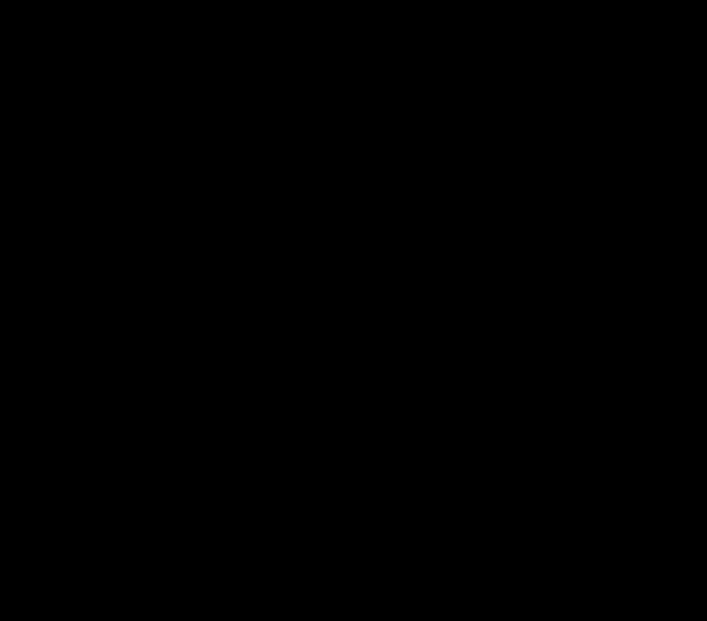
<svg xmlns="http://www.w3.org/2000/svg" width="707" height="621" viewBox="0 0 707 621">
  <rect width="100%" height="100%" fill="#000000"/>
  <image x="29" y="597" width="317" height="24" href="img1.png"/>
  <image x="361" y="597" width="318" height="24" href="img2.png"/>
</svg>
